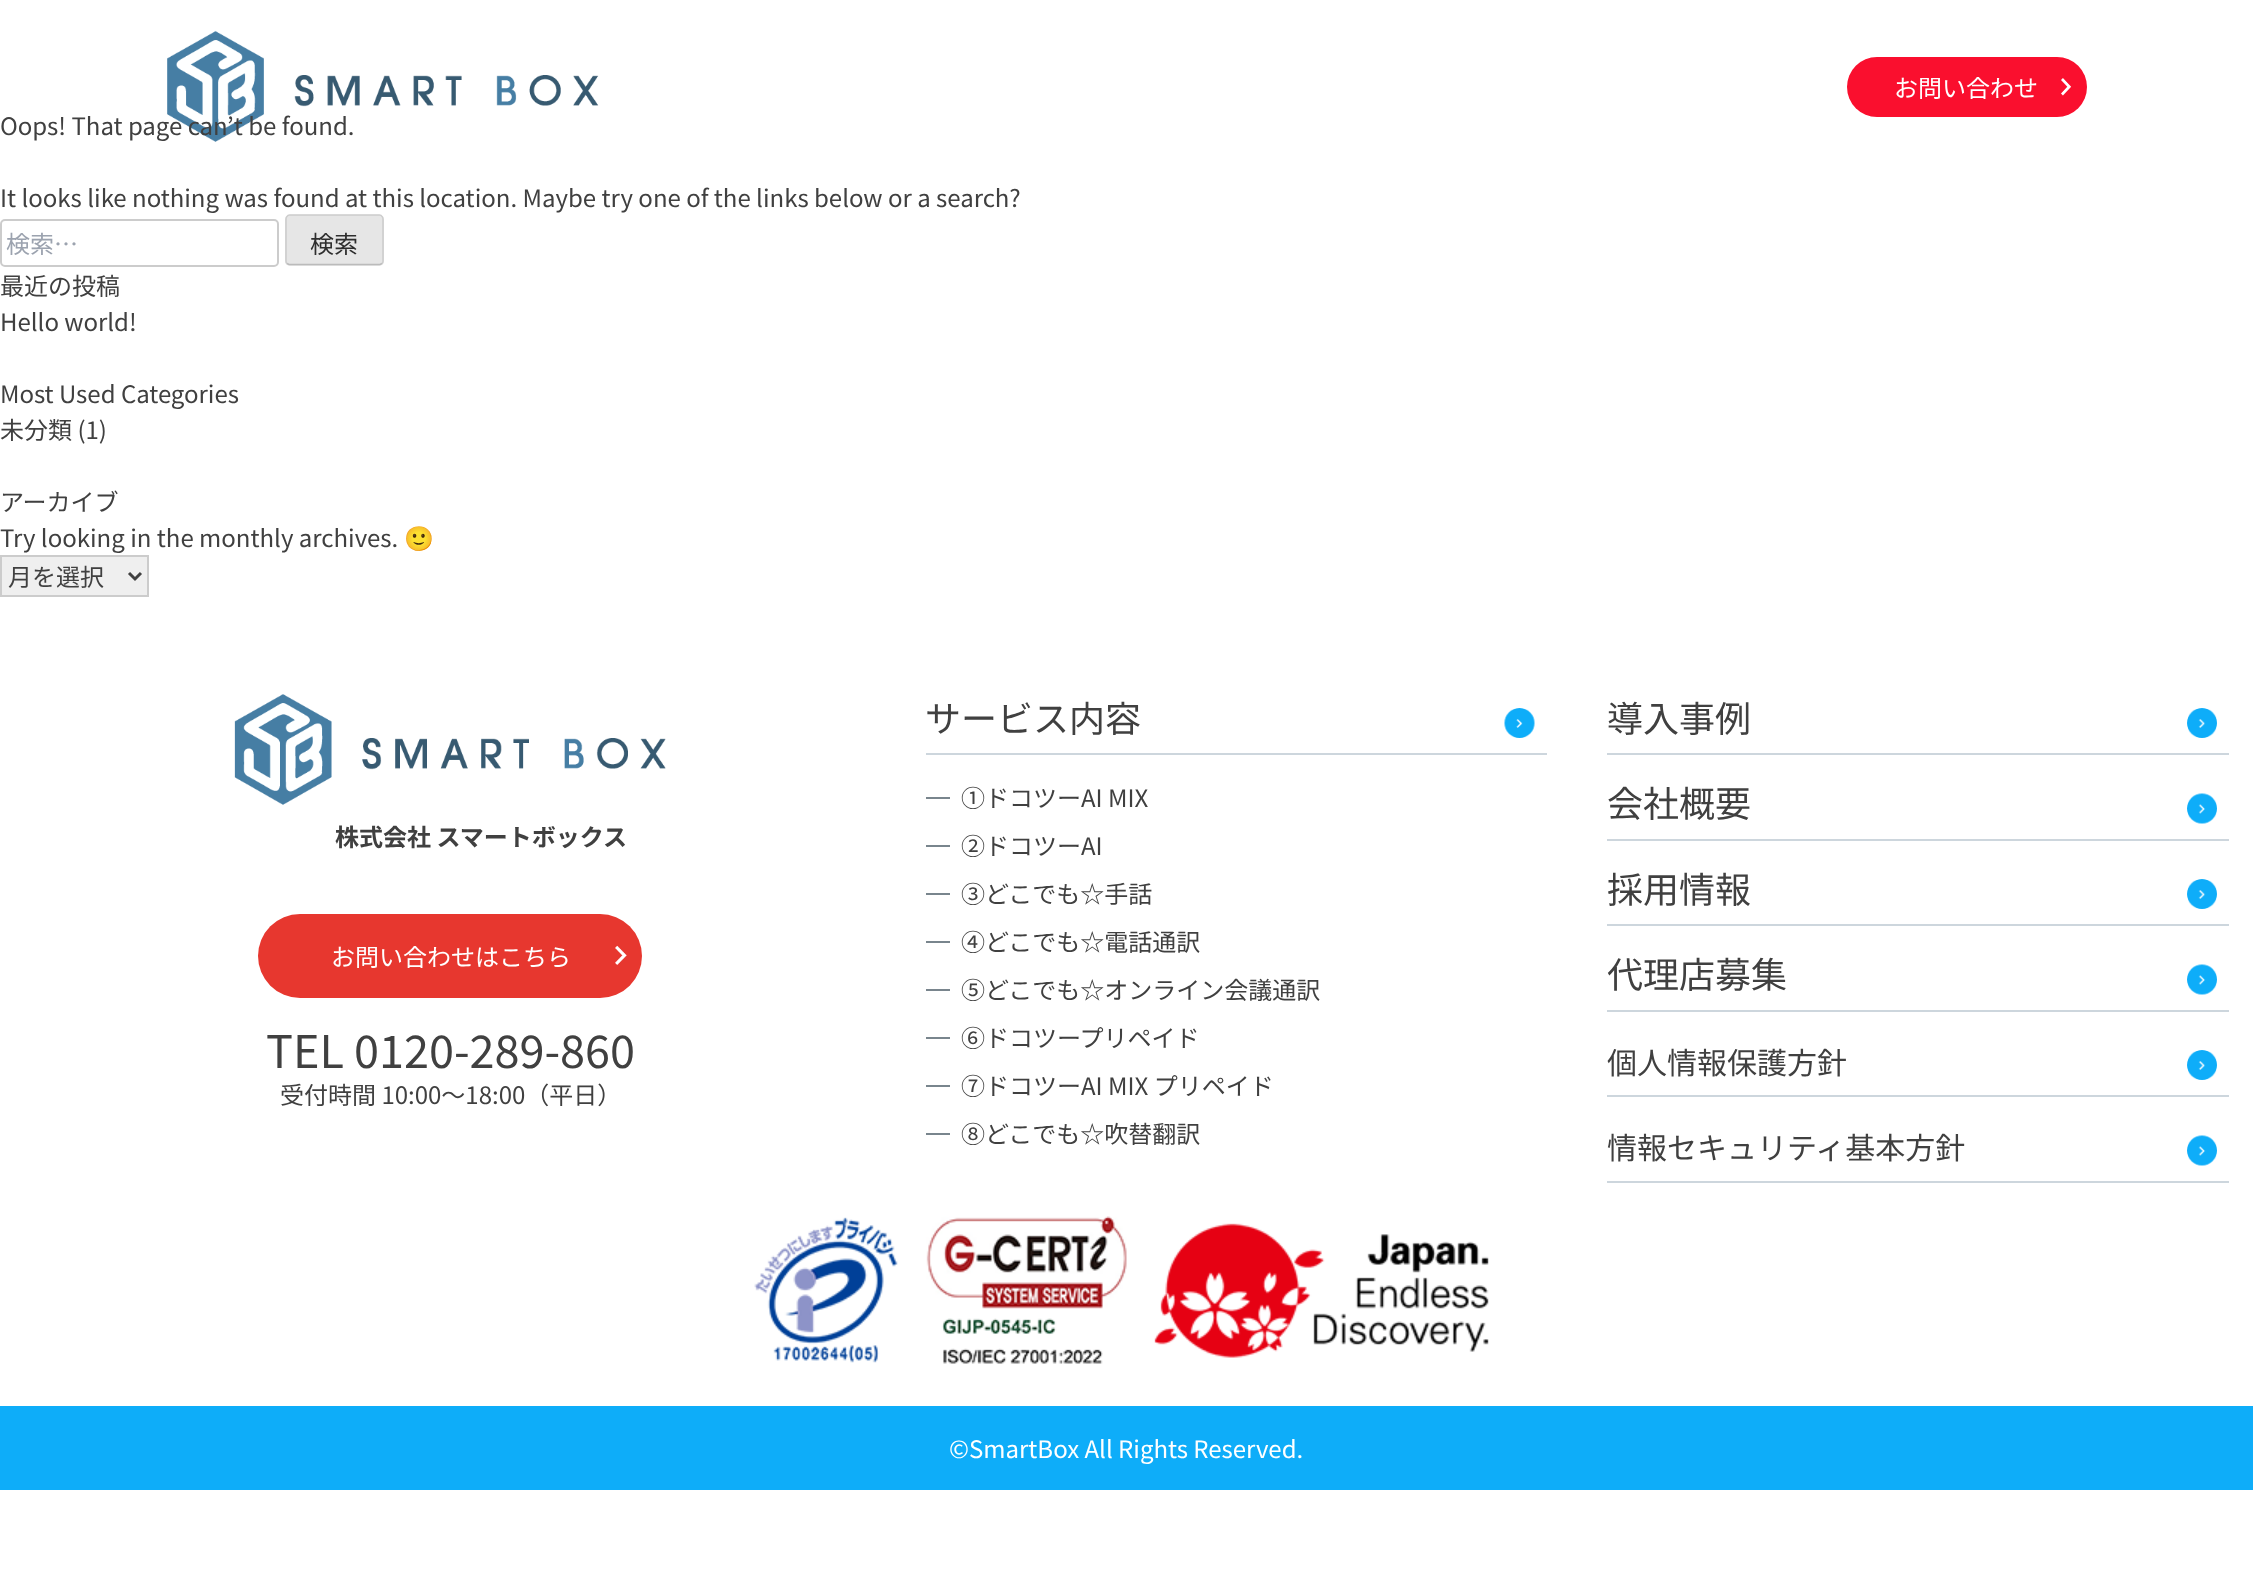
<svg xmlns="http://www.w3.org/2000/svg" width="2253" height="1586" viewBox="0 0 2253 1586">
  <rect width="100%" height="100%" fill="#ffffff"/>
  <image x="167" y="30" width="432" height="112" href="img1.png"/>
  <rect x="1847" y="57" width="240" height="60" rx="30" fill="#fa0f2e"/>
  <text x="1894" y="97" font-family="Noto Sans JP" font-size="24" fill="#ffffff">お問い合わせ</text>
  <image x="2061" y="78" width="11" height="18" href="img2.png"/>
  <text x="0" y="135" font-family="Noto Sans JP" font-size="24" fill="#404040">Oops! That page can’t be found.</text>
  <text x="0" y="207" font-family="Noto Sans JP" font-size="24" fill="#404040">It looks like nothing was found at this location. Maybe try one of the links below or a search?</text>
  <rect x="1" y="220" width="277" height="46" rx="4" fill="none" stroke="#cccccc" stroke-width="2"/>
  <text x="6" y="253" font-family="Noto Sans JP" font-size="24" fill="#9ca3af">検索…</text>
  <rect x="285" y="215" width="99" height="51" rx="5" fill="#e6e6e6"/>
  <path d="M382 263.5L380 264.5H289L287 263.5" fill="none" stroke="#bbbbbb" stroke-width="1.5"/>
  <path d="M287 263.5C286 263 286 262 286 261V219C286 218 286 217 287 216.5C287.5 215.5 288.5 215 289.5 215H379.5C380.5 215 381.5 215.5 382 216.5C383 217 383 218 383 219V261C383 262 383 263 382 263.5" fill="none" stroke="#cccccc" stroke-width="1.5"/>
  <text x="310" y="253" font-family="Noto Sans JP" font-size="24" fill="#2e2e2e">検索</text>
  <text x="0" y="295" font-family="Noto Sans JP" font-size="24" fill="#404040">最近の投稿</text>
  <text x="0" y="331" font-family="Noto Sans JP" font-size="24" fill="#404040">Hello world!</text>
  <text x="0" y="403" font-family="Noto Sans JP" font-size="24" fill="#404040">Most Used Categories</text>
  <text x="0" y="439" font-family="Noto Sans JP" font-size="24" fill="#404040">未分類 (1)</text>
  <text x="0" y="511" font-family="Noto Sans JP" font-size="24" fill="#404040">アーカイブ</text>
  <text x="0" y="547" font-family="Noto Sans JP" font-size="24" fill="#404040">Try looking in the monthly archives.</text>
  <text x="404" y="547" font-family="Noto Color Emoji" font-size="24" fill="#404040">🙂</text>
  <rect x="1" y="556" width="147" height="40" fill="#efefef" stroke="#cccccc" stroke-width="2"/>
  <path d="M129 573L135 579L141 573" fill="none" stroke="#404040" stroke-width="3"/>
  <text x="8" y="586" font-family="Noto Sans JP" font-size="24" fill="#404040">月を選択</text>
  <image x="234" y="694" width="432" height="111" href="img3.png"/>
  <text x="335" y="846" font-family="Noto Sans JP" font-size="24" font-weight="bold" fill="#404040">株式会社 スマートボックス</text>
  <rect x="258" y="914" width="384" height="84" rx="42" fill="#e7372f"/>
  <text x="331" y="966" font-family="Noto Sans JP" font-size="24" fill="#ffffff">お問い合わせはこちら</text>
  <image x="615" y="945" width="12" height="20" href="img4.png"/>
  <text x="266" y="1068" font-family="Noto Sans JP" font-size="45" fill="#404040">TEL 0120-289-860</text>
  <text x="280" y="1104" font-family="Noto Sans JP" font-size="24" fill="#404040">受付時間 10:00〜18:00（平日）</text>
  <rect x="926" y="753" width="621" height="2" fill="#cdd6dd"/>
  <text x="925" y="732" font-family="Noto Sans JP" font-size="36" fill="#404040">サービス内容</text>
  <image x="1504" y="708" width="31" height="30" href="img5.png"/>
  <rect x="926" y="797" width="24" height="2" fill="#79858d"/>
  <text x="961" y="807" font-family="Noto Sans JP" font-size="24" fill="#404040">①ドコツーAI MIX</text>
  <rect x="926" y="845" width="24" height="2" fill="#79858d"/>
  <text x="961" y="855" font-family="Noto Sans JP" font-size="24" fill="#404040">②ドコツーAI</text>
  <rect x="926" y="893" width="24" height="2" fill="#79858d"/>
  <text x="961" y="903" font-family="Noto Sans JP" font-size="24" fill="#404040">③どこでも☆手話</text>
  <rect x="926" y="941" width="24" height="2" fill="#79858d"/>
  <text x="961" y="951" font-family="Noto Sans JP" font-size="24" fill="#404040">④どこでも☆電話通訳</text>
  <rect x="926" y="989" width="24" height="2" fill="#79858d"/>
  <text x="961" y="999" font-family="Noto Sans JP" font-size="24" fill="#404040">⑤どこでも☆オンライン会議通訳</text>
  <rect x="926" y="1037" width="24" height="2" fill="#79858d"/>
  <text x="961" y="1047" font-family="Noto Sans JP" font-size="24" fill="#404040">⑥ドコツープリペイド</text>
  <rect x="926" y="1085" width="24" height="2" fill="#79858d"/>
  <text x="961" y="1095" font-family="Noto Sans JP" font-size="24" fill="#404040">⑦ドコツーAI MIX プリペイド</text>
  <rect x="926" y="1133" width="24" height="2" fill="#79858d"/>
  <text x="961" y="1143" font-family="Noto Sans JP" font-size="24" fill="#404040">⑧どこでも☆吹替翻訳</text>
  <rect x="1607" y="753" width="622" height="2" fill="#cdd6dd"/>
  <text x="1607" y="732" font-family="Noto Sans JP" font-size="36" fill="#404040">導入事例</text>
  <image x="2187" y="708" width="30" height="30" href="img6.png"/>
  <rect x="1607" y="839" width="622" height="2" fill="#cdd6dd"/>
  <text x="1607" y="817" font-family="Noto Sans JP" font-size="36" fill="#404040">会社概要</text>
  <image x="2187" y="793" width="30" height="31" href="img7.png"/>
  <rect x="1607" y="924" width="622" height="2" fill="#cdd6dd"/>
  <text x="1607" y="903" font-family="Noto Sans JP" font-size="36" fill="#404040">採用情報</text>
  <image x="2187" y="879" width="30" height="30" href="img6.png"/>
  <rect x="1607" y="1010" width="622" height="2" fill="#cdd6dd"/>
  <text x="1607" y="988" font-family="Noto Sans JP" font-size="36" fill="#404040">代理店募集</text>
  <image x="2187" y="964" width="30" height="31" href="img7.png"/>
  <rect x="1607" y="1095" width="622" height="2" fill="#cdd6dd"/>
  <text x="1607" y="1074" font-family="Noto Sans JP" font-size="30" fill="#404040">個人情報保護方針</text>
  <image x="2187" y="1050" width="30" height="30" href="img6.png"/>
  <rect x="1607" y="1181" width="622" height="2" fill="#cdd6dd"/>
  <text x="1607" y="1159" font-family="Noto Sans JP" font-size="30" fill="#404040">情報セキュリティ基本方針</text>
  <image x="2187" y="1135" width="30" height="31" href="img7.png"/>
  <image x="754" y="1216" width="735" height="148" href="img8.png"/>
  <rect x="0" y="1406" width="2253" height="84" fill="#0eadf9"/>
  <text x="949" y="1458" font-family="Noto Sans JP" font-size="24" fill="#ffffff">©SmartBox All Rights Reserved.</text>
</svg>
